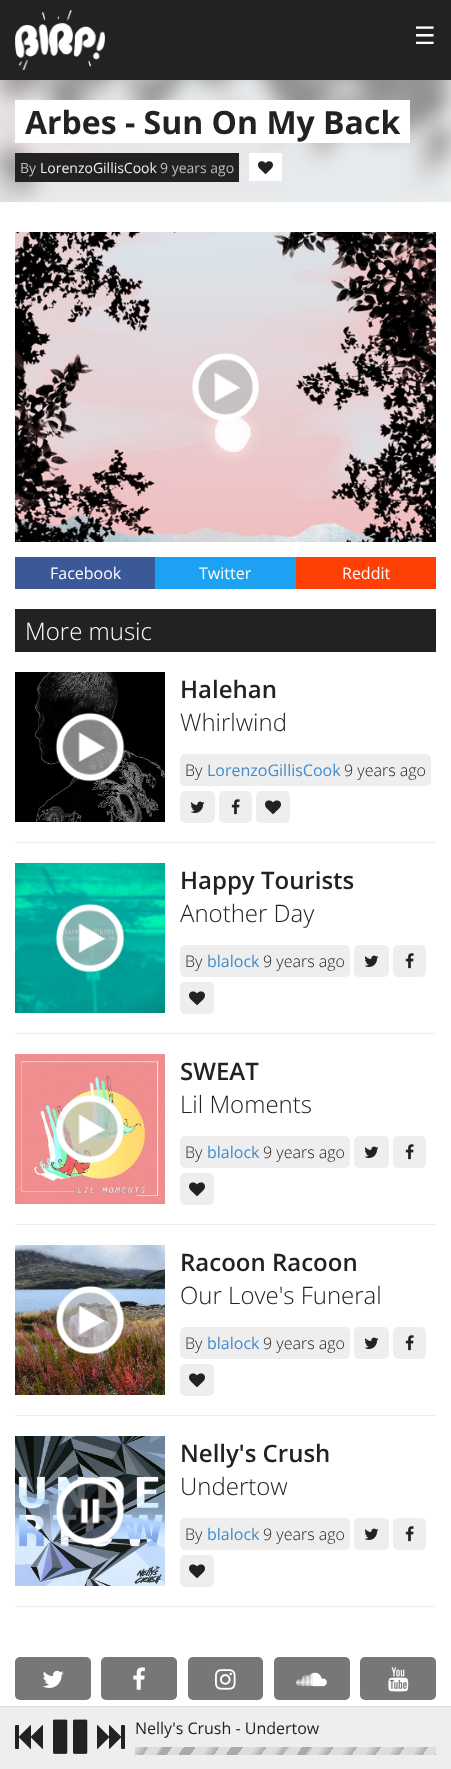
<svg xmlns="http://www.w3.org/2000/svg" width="451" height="1769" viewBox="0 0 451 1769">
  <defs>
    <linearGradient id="g1" gradientUnits="userSpaceOnUse" x1="396" y1="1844" x2="131" y2="1659"><stop offset="0" stop-color="#aaaaaa"/><stop offset="0" stop-color="#dddddd"/><stop offset="0.03" stop-color="#dddddd"/><stop offset="0.03" stop-color="#aaaaaa"/><stop offset="0.06" stop-color="#aaaaaa"/><stop offset="0.06" stop-color="#dddddd"/><stop offset="0.09" stop-color="#dddddd"/><stop offset="0.09" stop-color="#aaaaaa"/><stop offset="0.12" stop-color="#dddddd"/><stop offset="0.15" stop-color="#dddddd"/><stop offset="0.15" stop-color="#aaaaaa"/><stop offset="0.18" stop-color="#dddddd"/><stop offset="0.21" stop-color="#dddddd"/><stop offset="0.21" stop-color="#aaaaaa"/><stop offset="0.24" stop-color="#dddddd"/><stop offset="0.27" stop-color="#dddddd"/><stop offset="0.27" stop-color="#aaaaaa"/><stop offset="0.3" stop-color="#dddddd"/><stop offset="0.33" stop-color="#dddddd"/><stop offset="0.33" stop-color="#aaaaaa"/><stop offset="0.36" stop-color="#dddddd"/><stop offset="0.38" stop-color="#dddddd"/><stop offset="0.39" stop-color="#aaaaaa"/><stop offset="0.41" stop-color="#aaaaaa"/><stop offset="0.41" stop-color="#dddddd"/><stop offset="0.44" stop-color="#dddddd"/><stop offset="0.45" stop-color="#aaaaaa"/><stop offset="0.47" stop-color="#dddddd"/><stop offset="0.5" stop-color="#dddddd"/><stop offset="0.5" stop-color="#aaaaaa"/><stop offset="0.53" stop-color="#dddddd"/><stop offset="0.56" stop-color="#dddddd"/><stop offset="0.56" stop-color="#aaaaaa"/><stop offset="0.59" stop-color="#aaaaaa"/><stop offset="0.59" stop-color="#dddddd"/><stop offset="0.62" stop-color="#dddddd"/><stop offset="0.62" stop-color="#aaaaaa"/><stop offset="0.65" stop-color="#dddddd"/><stop offset="0.68" stop-color="#dddddd"/><stop offset="0.68" stop-color="#aaaaaa"/><stop offset="0.71" stop-color="#aaaaaa"/><stop offset="0.71" stop-color="#dddddd"/><stop offset="0.74" stop-color="#dddddd"/><stop offset="0.74" stop-color="#aaaaaa"/><stop offset="0.76" stop-color="#aaaaaa"/><stop offset="0.77" stop-color="#dddddd"/><stop offset="0.8" stop-color="#dddddd"/><stop offset="0.8" stop-color="#aaaaaa"/><stop offset="0.83" stop-color="#dddddd"/><stop offset="0.85" stop-color="#dddddd"/><stop offset="0.86" stop-color="#aaaaaa"/><stop offset="0.89" stop-color="#dddddd"/><stop offset="0.91" stop-color="#dddddd"/><stop offset="0.92" stop-color="#aaaaaa"/><stop offset="0.94" stop-color="#dddddd"/><stop offset="0.97" stop-color="#dddddd"/><stop offset="0.98" stop-color="#aaaaaa"/><stop offset="1" stop-color="#aaaaaa"/></linearGradient>
  </defs>
  <rect width="100%" height="100%" fill="#ffffff"/>
  <rect x="0" y="0" width="451" height="80" fill="#222222"/>
  <image x="15" y="10" width="90" height="60" href="img1.png"/>
  <text x="414" y="44" font-family="DejaVu Sans" font-size="24" fill="#ffffff">☰</text>
  <rect x="0" y="80" width="451" height="122" fill="#eeeeee"/>
  <image x="0" y="80" width="451" height="122" href="img2.png"/>
  <rect x="15" y="100" width="395" height="43" fill="#ffffff"/>
  <text x="25" y="134" font-family="Open Sans" font-size="32" font-weight="bold" fill="#222222">Arbes - Sun On My Back</text>
  <rect x="15" y="153" width="224" height="29" fill="#222222"/>
  <text x="20" y="173" font-family="Open Sans" font-size="14" fill="#bbbbbb">By</text>
  <text x="40" y="173" font-family="Open Sans" font-size="14" fill="#eeeeee">LorenzoGillisCook</text>
  <text x="160" y="173" font-family="Open Sans" font-size="14" fill="#bbbbbb">9 years ago</text>
  <rect x="249" y="153" width="33" height="28" fill="#ffffff"/>
  <image x="258" y="161" width="15" height="13" href="img3.png"/>
  <image x="15" y="232" width="421" height="310" href="img4.png"/>
  <image x="192" y="353" width="68" height="68" href="img5.png"/>
  <rect x="15" y="557" width="140" height="32" fill="#3b5998"/>
  <text x="50" y="579" font-family="Open Sans" font-size="16" fill="#ffffff">Facebook</text>
  <rect x="155" y="557" width="141" height="32" fill="#1da1f2"/>
  <text x="199" y="579" font-family="Open Sans" font-size="16" fill="#ffffff">Twitter</text>
  <rect x="296" y="557" width="140" height="32" fill="#ff4006"/>
  <text x="342" y="579" font-family="Open Sans" font-size="16" fill="#ffffff">Reddit</text>
  <rect x="15" y="609" width="421" height="43" fill="#222222"/>
  <text x="25" y="640" font-family="Open Sans" font-size="24" font-weight="300" fill="#ffffff">More music</text>
  <rect x="15" y="842" width="421" height="1" fill="#eeeeee"/>
  <image x="15" y="672" width="150" height="150" href="img6.png"/>
  <image x="55" y="712" width="70" height="70" href="img7.png"/>
  <text x="180" y="698" font-family="Open Sans" font-size="24" font-weight="600" fill="#222222">Halehan</text>
  <text x="180" y="731" font-family="Open Sans" font-size="24" font-weight="300" fill="#222222">Whirlwind</text>
  <rect x="180" y="754" width="251" height="32" rx="5" fill="#eeeeee"/>
  <text x="185" y="776" font-family="Open Sans" font-size="16" font-weight="300" fill="#222222">By</text>
  <text x="207" y="776" font-family="Open Sans" font-size="16" fill="#428bca">LorenzoGillisCook</text>
  <text x="344" y="776" font-family="Open Sans" font-size="16" font-weight="300" fill="#222222">9 years ago</text>
  <rect x="180" y="791" width="35" height="32" rx="5" fill="#eeeeee"/>
  <image x="190" y="801" width="15" height="12" href="img8.png"/>
  <rect x="219" y="791" width="33" height="32" rx="5" fill="#eeeeee"/>
  <image x="231" y="799" width="9" height="16" href="img9.png"/>
  <rect x="256" y="791" width="34" height="32" rx="5" fill="#eeeeee"/>
  <image x="265" y="800" width="16" height="15" href="img10.png"/>
  <rect x="15" y="1033" width="421" height="1" fill="#eeeeee"/>
  <image x="15" y="863" width="150" height="150" href="img11.png"/>
  <image x="55" y="903" width="70" height="70" href="img12.png"/>
  <text x="180" y="889" font-family="Open Sans" font-size="24" font-weight="600" fill="#222222">Happy Tourists</text>
  <text x="180" y="922" font-family="Open Sans" font-size="24" font-weight="300" fill="#222222">Another Day</text>
  <rect x="180" y="945" width="170" height="32" rx="5" fill="#eeeeee"/>
  <text x="185" y="967" font-family="Open Sans" font-size="16" font-weight="300" fill="#222222">By</text>
  <text x="207" y="967" font-family="Open Sans" font-size="16" fill="#428bca">blalock</text>
  <text x="263" y="967" font-family="Open Sans" font-size="16" font-weight="300" fill="#222222">9 years ago</text>
  <rect x="354" y="945" width="35" height="32" rx="5" fill="#eeeeee"/>
  <image x="364" y="955" width="15" height="12" href="img8.png"/>
  <rect x="393" y="945" width="33" height="32" rx="5" fill="#eeeeee"/>
  <image x="405" y="953" width="9" height="16" href="img9.png"/>
  <rect x="180" y="982" width="34" height="32" rx="5" fill="#eeeeee"/>
  <image x="189" y="991" width="16" height="15" href="img10.png"/>
  <rect x="15" y="1224" width="421" height="1" fill="#eeeeee"/>
  <image x="15" y="1054" width="150" height="150" href="img13.png"/>
  <image x="56" y="1094" width="69" height="70" href="img14.png"/>
  <text x="180" y="1080" font-family="Open Sans" font-size="24" font-weight="600" fill="#222222">SWEAT</text>
  <text x="180" y="1113" font-family="Open Sans" font-size="24" font-weight="300" fill="#222222">Lil Moments</text>
  <rect x="180" y="1136" width="170" height="32" rx="5" fill="#eeeeee"/>
  <text x="185" y="1158" font-family="Open Sans" font-size="16" font-weight="300" fill="#222222">By</text>
  <text x="207" y="1158" font-family="Open Sans" font-size="16" fill="#428bca">blalock</text>
  <text x="263" y="1158" font-family="Open Sans" font-size="16" font-weight="300" fill="#222222">9 years ago</text>
  <rect x="354" y="1136" width="35" height="32" rx="5" fill="#eeeeee"/>
  <image x="364" y="1146" width="15" height="12" href="img8.png"/>
  <rect x="393" y="1136" width="33" height="32" rx="5" fill="#eeeeee"/>
  <image x="405" y="1144" width="9" height="16" href="img9.png"/>
  <rect x="180" y="1173" width="34" height="32" rx="5" fill="#eeeeee"/>
  <image x="189" y="1182" width="16" height="15" href="img10.png"/>
  <rect x="15" y="1415" width="421" height="1" fill="#eeeeee"/>
  <image x="15" y="1245" width="150" height="150" href="img15.png"/>
  <image x="55" y="1285" width="70" height="70" href="img16.png"/>
  <text x="180" y="1271" font-family="Open Sans" font-size="24" font-weight="600" fill="#222222">Racoon Racoon</text>
  <text x="180" y="1304" font-family="Open Sans" font-size="24" font-weight="300" fill="#222222">Our Love's Funeral</text>
  <rect x="180" y="1327" width="170" height="32" rx="5" fill="#eeeeee"/>
  <text x="185" y="1349" font-family="Open Sans" font-size="16" font-weight="300" fill="#222222">By</text>
  <text x="207" y="1349" font-family="Open Sans" font-size="16" fill="#428bca">blalock</text>
  <text x="263" y="1349" font-family="Open Sans" font-size="16" font-weight="300" fill="#222222">9 years ago</text>
  <rect x="354" y="1327" width="35" height="32" rx="5" fill="#eeeeee"/>
  <image x="364" y="1337" width="15" height="12" href="img8.png"/>
  <rect x="393" y="1327" width="33" height="32" rx="5" fill="#eeeeee"/>
  <image x="405" y="1335" width="9" height="16" href="img9.png"/>
  <rect x="180" y="1364" width="34" height="32" rx="5" fill="#eeeeee"/>
  <image x="189" y="1373" width="16" height="15" href="img10.png"/>
  <rect x="15" y="1606" width="421" height="1" fill="#eeeeee"/>
  <image x="15" y="1436" width="150" height="150" href="img17.png"/>
  <image x="55" y="1476" width="70" height="70" href="img18.png"/>
  <text x="180" y="1462" font-family="Open Sans" font-size="24" font-weight="600" fill="#222222">Nelly's Crush</text>
  <text x="180" y="1495" font-family="Open Sans" font-size="24" font-weight="300" fill="#222222">Undertow</text>
  <rect x="180" y="1518" width="170" height="32" rx="5" fill="#eeeeee"/>
  <text x="185" y="1540" font-family="Open Sans" font-size="16" font-weight="300" fill="#222222">By</text>
  <text x="207" y="1540" font-family="Open Sans" font-size="16" fill="#428bca">blalock</text>
  <text x="263" y="1540" font-family="Open Sans" font-size="16" font-weight="300" fill="#222222">9 years ago</text>
  <rect x="354" y="1518" width="35" height="32" rx="5" fill="#eeeeee"/>
  <image x="364" y="1528" width="15" height="12" href="img8.png"/>
  <rect x="393" y="1518" width="33" height="32" rx="5" fill="#eeeeee"/>
  <image x="405" y="1526" width="9" height="16" href="img9.png"/>
  <rect x="180" y="1555" width="34" height="32" rx="5" fill="#eeeeee"/>
  <image x="189" y="1564" width="16" height="15" href="img10.png"/>
  <rect x="15" y="1657" width="76" height="43" rx="5" fill="#777777"/>
  <image x="42" y="1670" width="22" height="18" href="img19.png"/>
  <rect x="101" y="1657" width="76" height="43" rx="5" fill="#777777"/>
  <image x="133" y="1667" width="12" height="23" href="img20.png"/>
  <rect x="188" y="1657" width="75" height="43" rx="5" fill="#777777"/>
  <image x="215" y="1669" width="21" height="21" href="img21.png"/>
  <rect x="274" y="1657" width="76" height="43" rx="5" fill="#777777"/>
  <image x="296" y="1672" width="31" height="15" href="img22.png"/>
  <rect x="360" y="1657" width="76" height="43" rx="5" fill="#777777"/>
  <image x="388" y="1667" width="21" height="25" href="img23.png"/>
  <rect x="0" y="1707" width="451" height="62" fill="#eeeeee"/>
  <rect x="0" y="1706" width="451" height="1" fill="#dddddd"/>
  <image x="15" y="1725" width="28" height="24" href="img24.png"/>
  <image x="53" y="1719" width="35" height="35" href="img25.png"/>
  <image x="97" y="1725" width="28" height="24" href="img26.png"/>
  <text x="135" y="1734" font-family="Open Sans" font-size="16" fill="#222222">Nelly's Crush - Undertow</text>
  <rect x="135" y="1747" width="301" height="8" fill="url(#g1)"/>
</svg>
